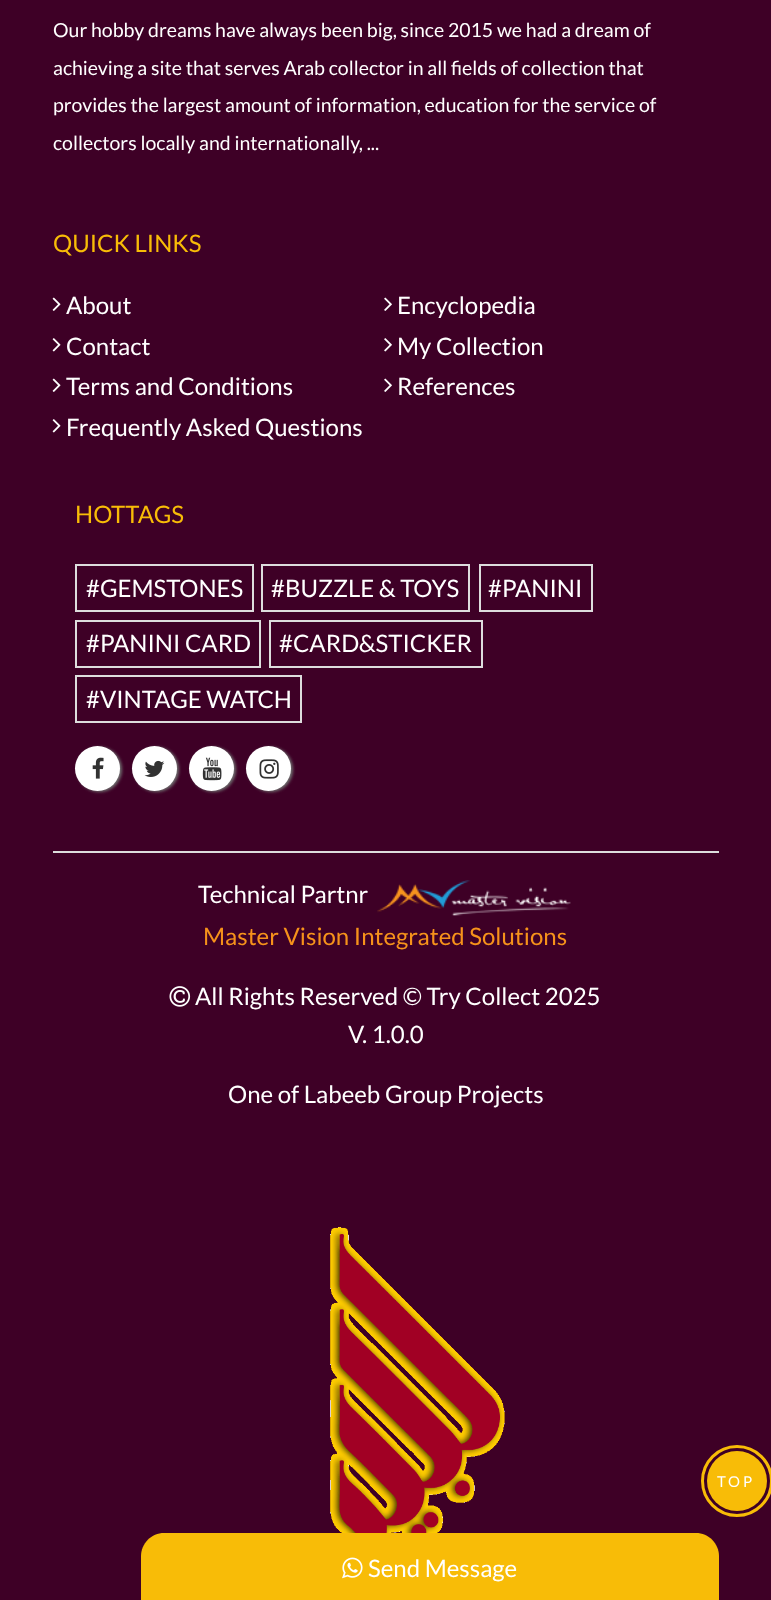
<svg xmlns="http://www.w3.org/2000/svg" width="771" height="1600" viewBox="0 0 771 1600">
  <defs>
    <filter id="blur1" x="-50%" y="-200%" width="200%" height="500%"><feGaussianBlur stdDeviation="1.5"/></filter>
  </defs>
  <rect width="100%" height="100%" fill="#3e0026"/>
  <rect x="53" y="851" width="666" height="2" fill="#dddddd"/>
  <text x="53" y="37" font-family="Lato" font-size="19.5" fill="#ffffff">Our hobby dreams have always been big, since 2015 we had a dream of</text>
  <text x="53" y="75" font-family="Lato" font-size="19.5" fill="#ffffff">achieving a site that serves Arab collector in all fields of collection that</text>
  <text x="53" y="112" font-family="Lato" font-size="19.5" fill="#ffffff">provides the largest amount of information, education for the service of</text>
  <text x="53" y="150" font-family="Lato" font-size="19.5" fill="#ffffff">collectors locally and internationally, ...</text>
  <text x="53" y="252" font-family="Lato" font-size="24" fill="#f8bc07">QUICK LINKS</text>
  <image x="52" y="297" width="9" height="14" href="img1.png"/>
  <text x="66" y="314" font-family="Lato" font-size="24" fill="#ffffff">About</text>
  <image x="384" y="297" width="8" height="14" href="img2.png"/>
  <text x="397" y="314" font-family="Lato" font-size="24" fill="#ffffff">Encyclopedia</text>
  <image x="52" y="338" width="9" height="14" href="img3.png"/>
  <text x="66" y="355" font-family="Lato" font-size="24" fill="#ffffff">Contact</text>
  <image x="384" y="338" width="8" height="14" href="img4.png"/>
  <text x="397" y="355" font-family="Lato" font-size="24" fill="#ffffff">My Collection</text>
  <image x="52" y="378" width="9" height="14" href="img1.png"/>
  <text x="66" y="395" font-family="Lato" font-size="24" fill="#ffffff">Terms and Conditions</text>
  <image x="384" y="378" width="8" height="14" href="img2.png"/>
  <text x="397" y="395" font-family="Lato" font-size="24" fill="#ffffff">References</text>
  <image x="52" y="419" width="9" height="14" href="img3.png"/>
  <text x="66" y="436" font-family="Lato" font-size="24" fill="#ffffff">Frequently Asked Questions</text>
  <text x="75" y="523" font-family="Lato" font-size="24" fill="#f8bc07">HOTTAGS</text>
  <rect x="76" y="565" width="177" height="46" fill="none" stroke="#dddddd" stroke-width="2"/>
  <text x="86" y="597" font-family="Lato" font-size="24" fill="#ffffff">#GEMSTONES</text>
  <rect x="262" y="565" width="207" height="46" fill="none" stroke="#dddddd" stroke-width="2"/>
  <text x="271" y="597" font-family="Lato" font-size="24" fill="#ffffff">#BUZZLE &amp; TOYS</text>
  <rect x="480" y="565" width="112" height="46" fill="none" stroke="#dddddd" stroke-width="2"/>
  <text x="488" y="597" font-family="Lato" font-size="24" fill="#ffffff">#PANINI</text>
  <rect x="76" y="621" width="184" height="46" fill="none" stroke="#dddddd" stroke-width="2"/>
  <text x="86" y="652" font-family="Lato" font-size="24" fill="#ffffff">#PANINI CARD</text>
  <rect x="270" y="621" width="212" height="46" fill="none" stroke="#dddddd" stroke-width="2"/>
  <text x="279" y="652" font-family="Lato" font-size="24" fill="#ffffff">#CARD&amp;STICKER</text>
  <rect x="76" y="676" width="225" height="46" fill="none" stroke="#dddddd" stroke-width="2"/>
  <text x="86" y="708" font-family="Lato" font-size="24" fill="#ffffff">#VINTAGE WATCH</text>
  <rect x="77" y="747" width="45" height="45" rx="22.5" fill="#6f6f6f" filter="url(#blur1)"/>
  <circle cx="97.5" cy="768.5" r="22.5" fill="#ffffff"/>
  <image x="92" y="757" width="12" height="22" href="img5.png"/>
  <rect x="134" y="747" width="45" height="45" rx="22.5" fill="#6f6f6f" filter="url(#blur1)"/>
  <circle cx="154.5" cy="768.5" r="22.5" fill="#ffffff"/>
  <image x="144" y="760" width="21" height="17" href="img6.png"/>
  <rect x="191" y="747" width="45" height="45" rx="22.5" fill="#6f6f6f" filter="url(#blur1)"/>
  <circle cx="211.5" cy="768.5" r="22.5" fill="#ffffff"/>
  <image x="202" y="757" width="20" height="24" href="img7.png"/>
  <rect x="248" y="747" width="45" height="45" rx="22.5" fill="#6f6f6f" filter="url(#blur1)"/>
  <circle cx="268.5" cy="768.5" r="22.5" fill="#ffffff"/>
  <image x="259" y="759" width="20" height="20" href="img8.png"/>
  <text x="198" y="903" font-family="Lato" font-size="24" fill="#ffffff">Technical Partnr</text>
  <image x="377" y="880" width="194" height="36" href="img9.png"/>
  <text x="203" y="945" font-family="Lato" font-size="24" fill="#f6921b">Master Vision Integrated Solutions</text>
  <image x="169" y="986" width="22" height="21" href="img10.png"/>
  <text x="195" y="1005" font-family="Lato" font-size="24" fill="#ffffff">All Rights Reserved © Try Collect 2025</text>
  <text x="348" y="1043" font-family="Lato" font-size="24" fill="#ffffff">V. 1.0.0</text>
  <text x="228" y="1103" font-family="Lato" font-size="24" fill="#ffffff">One of Labeeb Group Projects</text>
  <image x="330" y="1227" width="175" height="306" href="img11.png"/>
  <circle cx="737" cy="1481" r="30" fill="#f8bc07"/>
  <text x="717" y="1487" font-family="Lato" font-size="15" letter-spacing="3" fill="#ffffff">TOP</text>
  <circle cx="737" cy="1481" r="34.5" fill="none" stroke="#f8bc07" stroke-width="3"/>
  <path d="M164 1533H696C708.5 1533 719 1543.5 719 1556V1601H141V1556C141 1543.5 151.5 1533 164 1533Z" fill="#f8bc07"/>
  <image x="342" y="1557" width="21" height="22" href="img12.png"/>
  <text x="368" y="1577" font-family="Lato" font-size="24" fill="#ffffff">Send Message</text>
</svg>
